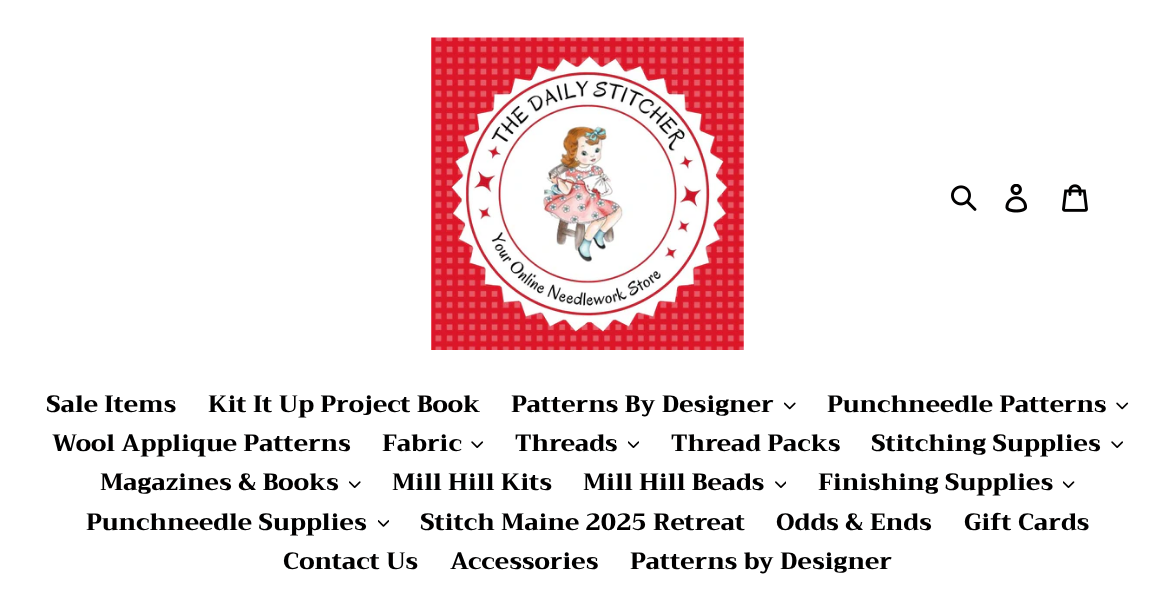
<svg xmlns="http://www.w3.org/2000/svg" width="1175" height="613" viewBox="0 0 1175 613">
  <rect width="100%" height="100%" fill="#ffffff"/>
  <image x="431" y="37" width="313" height="313" href="img1.png"/>
  <image x="951" y="185" width="26" height="26" href="img2.png"/>
  <image x="1005" y="184" width="22" height="29" href="img3.png"/>
  <image x="1062" y="184" width="26" height="28" href="img4.png"/>
  <text x="46" y="412" font-family="Trirong" font-size="23.75" font-weight="800" fill="#010000">Sale Items</text>
  <text x="208" y="412" font-family="Trirong" font-size="23.75" font-weight="800" fill="#010000">Kit It Up Project Book</text>
  <text x="511" y="412" font-family="Trirong" font-size="23.75" font-weight="800" fill="#010000">Patterns By Designer</text>
  <image x="784" y="402" width="12" height="8" href="img5.png"/>
  <text x="827" y="412" font-family="Trirong" font-size="23.75" font-weight="800" fill="#010000">Punchneedle Patterns</text>
  <image x="1116" y="402" width="13" height="8" href="img6.png"/>
  <text x="52" y="451" font-family="Trirong" font-size="23.75" font-weight="800" fill="#010000">Wool Applique Patterns</text>
  <text x="382" y="451" font-family="Trirong" font-size="23.75" font-weight="800" fill="#010000">Fabric</text>
  <image x="471" y="441" width="13" height="7" href="img7.png"/>
  <text x="515" y="451" font-family="Trirong" font-size="23.75" font-weight="800" fill="#010000">Threads</text>
  <image x="628" y="441" width="11" height="7" href="img8.png"/>
  <text x="671" y="451" font-family="Trirong" font-size="23.75" font-weight="800" fill="#010000">Thread Packs</text>
  <text x="871" y="451" font-family="Trirong" font-size="23.75" font-weight="800" fill="#010000">Stitching Supplies</text>
  <image x="1111" y="441" width="12" height="7" href="img9.png"/>
  <text x="100" y="490" font-family="Trirong" font-size="23.75" font-weight="800" fill="#010000">Magazines &amp; Books</text>
  <image x="349" y="481" width="12" height="7" href="img10.png"/>
  <text x="392" y="490" font-family="Trirong" font-size="23.75" font-weight="800" fill="#010000">Mill Hill Kits</text>
  <text x="583" y="490" font-family="Trirong" font-size="23.75" font-weight="800" fill="#010000">Mill Hill Beads</text>
  <image x="775" y="481" width="11" height="7" href="img11.png"/>
  <text x="818" y="490" font-family="Trirong" font-size="23.75" font-weight="800" fill="#010000">Finishing Supplies</text>
  <image x="1063" y="481" width="12" height="7" href="img12.png"/>
  <text x="86" y="530" font-family="Trirong" font-size="23.75" font-weight="800" fill="#010000">Punchneedle Supplies</text>
  <image x="378" y="520" width="11" height="7" href="img13.png"/>
  <text x="420" y="530" font-family="Trirong" font-size="23.75" font-weight="800" fill="#010000">Stitch Maine 2025 Retreat</text>
  <text x="776" y="530" font-family="Trirong" font-size="23.75" font-weight="800" fill="#010000">Odds &amp; Ends</text>
  <text x="964" y="530" font-family="Trirong" font-size="23.75" font-weight="800" fill="#010000">Gift Cards</text>
  <text x="283" y="569" font-family="Trirong" font-size="23.75" font-weight="800" fill="#010000">Contact Us</text>
  <text x="450" y="569" font-family="Trirong" font-size="23.75" font-weight="800" fill="#010000">Accessories</text>
  <text x="630" y="569" font-family="Trirong" font-size="23.75" font-weight="800" fill="#010000">Patterns by Designer</text>
</svg>
